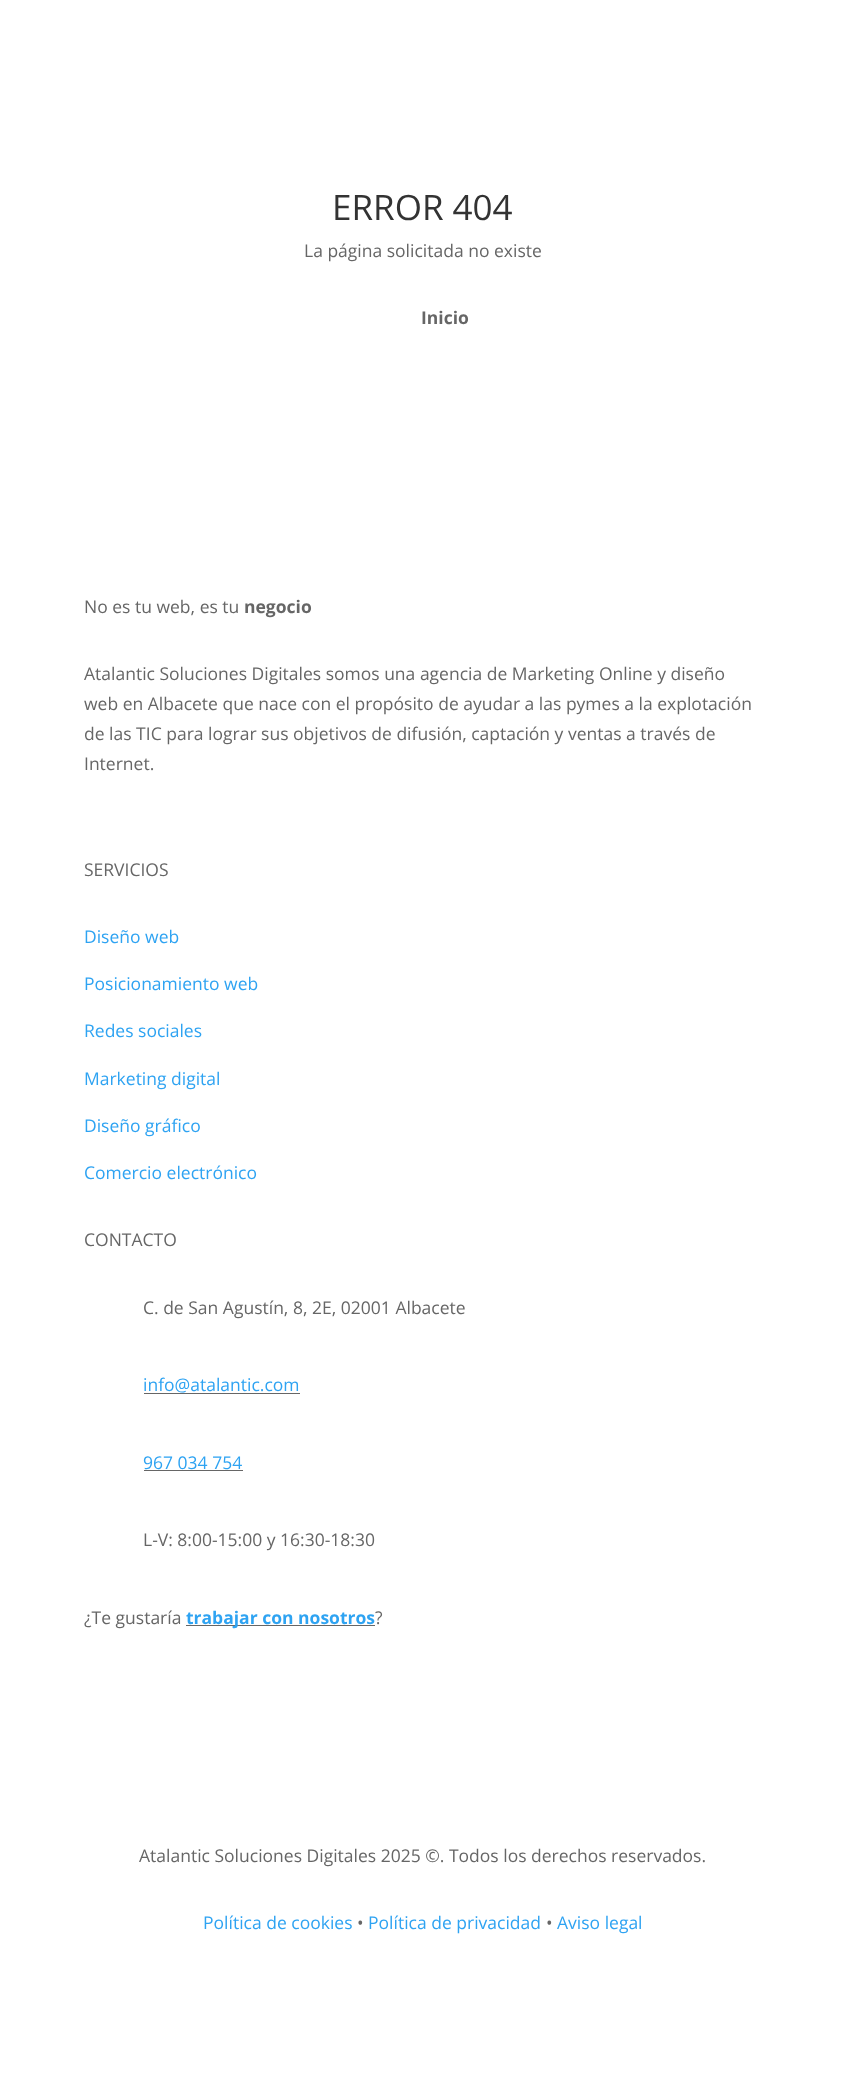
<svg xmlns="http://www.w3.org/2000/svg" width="844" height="2100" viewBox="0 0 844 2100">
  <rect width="100%" height="100%" fill="#ffffff"/>
  <text x="332" y="220" font-family="Open Sans" font-size="35" fill="#333333">ERROR 404</text>
  <text x="304" y="257" font-family="Open Sans" font-size="17.5" fill="#666666">La página solicitada no existe</text>
  <text x="421" y="324" font-family="Open Sans" font-size="17.5" font-weight="bold" fill="#666666">Inicio</text>
  <text x="84" y="613" font-family="Open Sans" font-size="17.5" fill="#666666">No es tu web, es tu</text>
  <text x="244" y="613" font-family="Open Sans" font-size="17.5" font-weight="bold" fill="#666666">negocio</text>
  <text x="84" y="680" font-family="Open Sans" font-size="17.5" fill="#666666">Atalantic Soluciones Digitales somos una agencia de Marketing Online y diseño</text>
  <text x="84" y="710" font-family="Open Sans" font-size="17.5" fill="#666666">web en Albacete que nace con el propósito de ayudar a las pymes a la explotación</text>
  <text x="84" y="740" font-family="Open Sans" font-size="17.5" fill="#666666">de las TIC para lograr sus objetivos de difusión, captación y ventas a través de</text>
  <text x="84" y="770" font-family="Open Sans" font-size="17.5" fill="#666666">Internet.</text>
  <text x="84" y="876" font-family="Open Sans" font-size="17.5" fill="#666666">SERVICIOS</text>
  <text x="84" y="943" font-family="Open Sans" font-size="17.5" fill="#2ea3f2">Diseño web</text>
  <text x="84" y="990" font-family="Open Sans" font-size="17.5" fill="#2ea3f2">Posicionamiento web</text>
  <text x="84" y="1037" font-family="Open Sans" font-size="17.5" fill="#2ea3f2">Redes sociales</text>
  <text x="84" y="1085" font-family="Open Sans" font-size="17.5" fill="#2ea3f2">Marketing digital</text>
  <text x="84" y="1132" font-family="Open Sans" font-size="17.5" fill="#2ea3f2">Diseño gráfico</text>
  <text x="84" y="1179" font-family="Open Sans" font-size="17.5" fill="#2ea3f2">Comercio electrónico</text>
  <text x="84" y="1246" font-family="Open Sans" font-size="17.5" fill="#666666">CONTACTO</text>
  <text x="143" y="1314" font-family="Open Sans" font-size="17.5" fill="#666666">C. de San Agustín, 8, 2E, 02001 Albacete</text>
  <text x="143" y="1391" font-family="Open Sans" font-size="17.5" fill="#2ea3f2">info@atalantic.com</text>
  <rect x="144" y="1393" width="156" height="1" fill="#666666"/>
  <text x="143" y="1469" font-family="Open Sans" font-size="17.5" fill="#2ea3f2">967 034 754</text>
  <rect x="144" y="1470" width="99" height="1" fill="#666666"/>
  <text x="143" y="1546" font-family="Open Sans" font-size="17.5" fill="#666666">L-V: 8:00-15:00 y 16:30-18:30</text>
  <text x="84" y="1624" font-family="Open Sans" font-size="17.5" fill="#666666">¿Te gustaría</text>
  <rect x="186" y="1625" width="189" height="1" fill="#666666"/>
  <text x="186" y="1624" font-family="Open Sans" font-size="17.5" font-weight="bold" fill="#2ea3f2">trabajar con nosotros</text>
  <text x="375" y="1624" font-family="Open Sans" font-size="17.5" fill="#666666">?</text>
  <text x="139" y="1862" font-family="Open Sans" font-size="17.5" fill="#666666">Atalantic Soluciones Digitales 2025 ©. Todos los derechos reservados.</text>
  <text x="203" y="1929" font-family="Open Sans" font-size="17.5" fill="#2ea3f2">Política de cookies</text>
  <text x="357" y="1929" font-family="Open Sans" font-size="17.5" fill="#666666">•</text>
  <text x="368" y="1929" font-family="Open Sans" font-size="17.5" fill="#2ea3f2">Política de privacidad</text>
  <text x="546" y="1929" font-family="Open Sans" font-size="17.5" fill="#666666">•</text>
  <text x="557" y="1929" font-family="Open Sans" font-size="17.5" fill="#2ea3f2">Aviso legal</text>
</svg>
